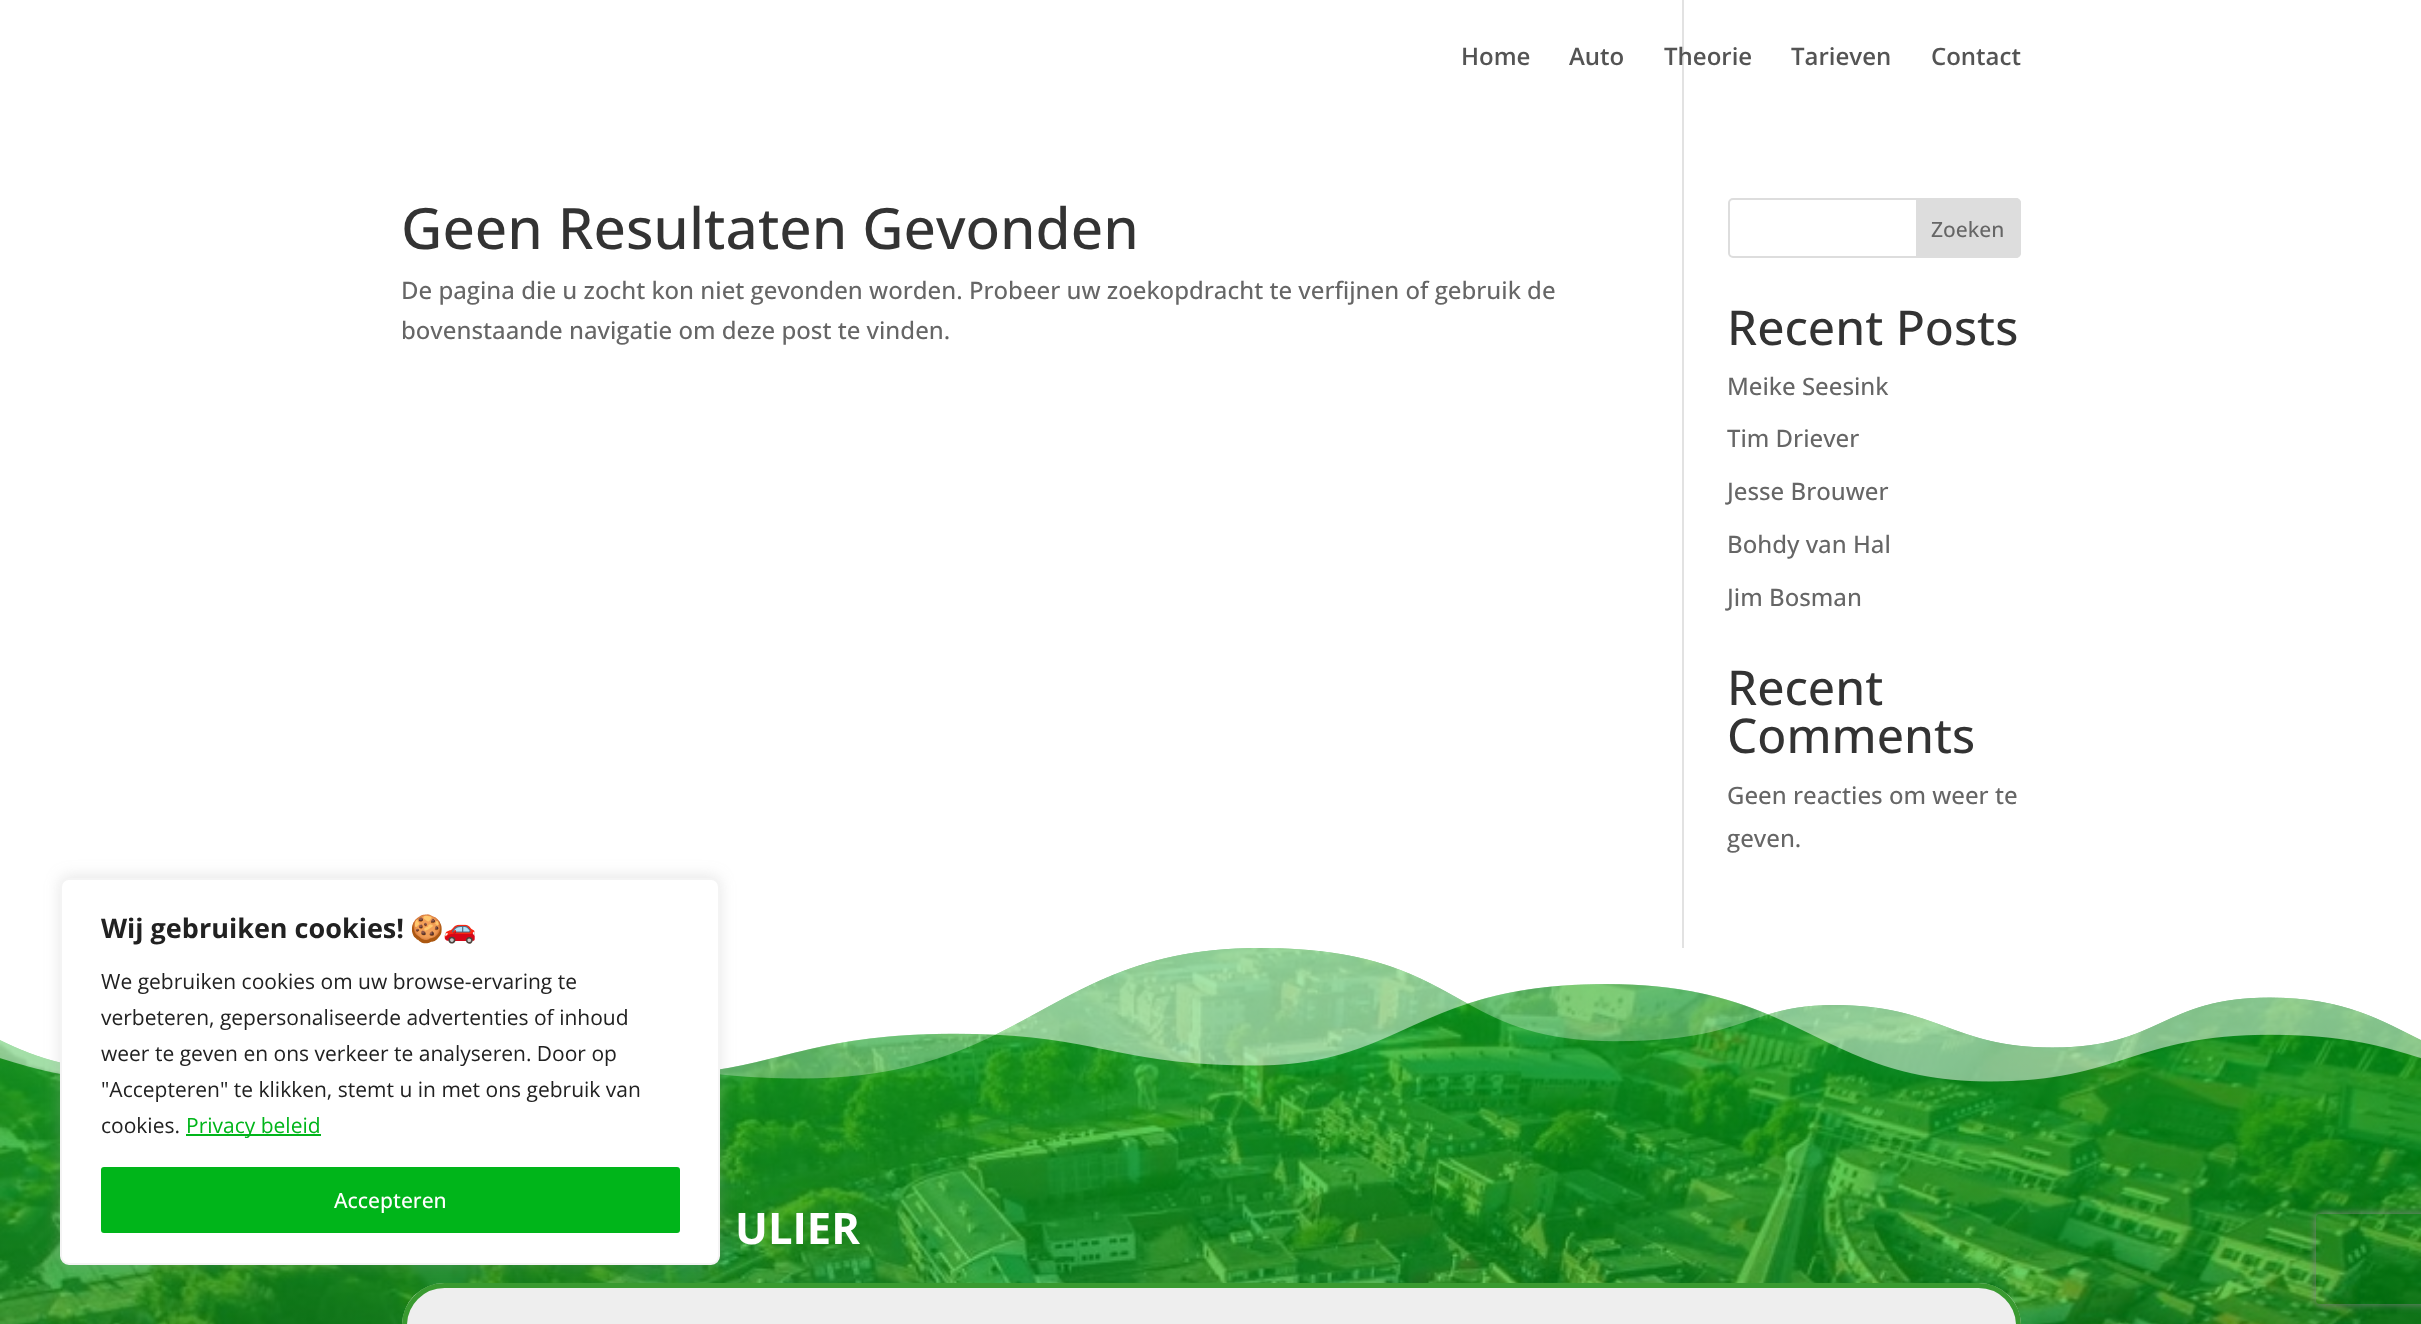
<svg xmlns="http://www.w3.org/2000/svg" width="2421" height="1324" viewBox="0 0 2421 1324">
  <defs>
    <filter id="blur1" x="-50%" y="-200%" width="200%" height="500%"><feGaussianBlur stdDeviation="7.5"/></filter>
    <clipPath id="clip1"><path d="M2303 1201H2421V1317H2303ZM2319 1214H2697C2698.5 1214 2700 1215.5 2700 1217V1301C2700 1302.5 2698.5 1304 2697 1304H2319C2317.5 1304 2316 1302.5 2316 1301V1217C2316 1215.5 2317.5 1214 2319 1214Z" clip-rule="evenodd"/></clipPath>
    <filter id="blur2" x="-50%" y="-200%" width="200%" height="500%"><feGaussianBlur stdDeviation="4"/></filter>
  </defs>
  <rect width="100%" height="100%" fill="#ffffff"/>
  <image x="0" y="948" width="2421" height="376" href="img1.png"/>
  <image x="0" y="948" width="2421" height="134" href="img2.png"/>
  <rect x="402" y="1283" width="1619" height="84" rx="42.5" fill="#eeeeee"/>
  <rect x="404.5" y="1285.5" width="1614" height="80" rx="40" fill="none" stroke="#0b8400" stroke-opacity="0.8" stroke-width="5"/>
  <rect x="60" y="876" width="660" height="387" rx="9" fill="#acabab" fill-opacity="0.3" filter="url(#blur1)"/>
  <rect x="61" y="879" width="658" height="385" rx="8" fill="#ffffff" stroke="#f4f4f4" stroke-width="2"/>
  <text x="101" y="938" font-family="Open Sans" font-size="27" font-weight="bold" fill="#212121">Wij gebruiken cookies!</text>
  <text x="410" y="938" font-family="Noto Color Emoji" font-size="27" font-weight="bold" fill="#212121">🍪🚗</text>
  <text x="101" y="989" font-family="Open Sans" font-size="21" fill="#212121">We gebruiken cookies om uw browse-ervaring te</text>
  <text x="101" y="1025" font-family="Open Sans" font-size="21" fill="#212121">verbeteren, gepersonaliseerde advertenties of inhoud</text>
  <text x="101" y="1061" font-family="Open Sans" font-size="21" fill="#212121">weer te geven en ons verkeer te analyseren. Door op</text>
  <text x="101" y="1097" font-family="Open Sans" font-size="21" fill="#212121">"Accepteren" te klikken, stemt u in met ons gebruik van</text>
  <text x="101" y="1133" font-family="Open Sans" font-size="21" fill="#212121">cookies.</text>
  <rect x="186" y="1134" width="135" height="2" fill="#00b51a"/>
  <text x="186" y="1133" font-family="Open Sans" font-size="21" fill="#00b51a">Privacy beleid</text>
  <rect x="102.5" y="1168.5" width="576" height="63" rx="1.5" fill="#00b51a" stroke="#00b51a" stroke-width="3"/>
  <text x="334" y="1208" font-family="Open Sans" font-size="21" font-weight="500" fill="#ffffff">Accepteren</text>
  <text x="1461" y="65" font-family="Open Sans" font-size="24" font-weight="600" fill="#545454">Home</text>
  <text x="1569" y="65" font-family="Open Sans" font-size="24" font-weight="600" fill="#545454">Auto</text>
  <rect x="1682" y="0" width="2" height="948" fill="#e2e2e2"/>
  <text x="1664" y="65" font-family="Open Sans" font-size="24" font-weight="600" fill="#545454">Theorie</text>
  <text x="1791" y="65" font-family="Open Sans" font-size="24" font-weight="600" fill="#545454">Tarieven</text>
  <text x="1931" y="65" font-family="Open Sans" font-size="24" font-weight="600" fill="#545454">Contact</text>
  <text x="401" y="249" font-family="Open Sans" font-size="57" font-weight="500" fill="#333333">Geen Resultaten Gevonden</text>
  <text x="401" y="299" font-family="Open Sans" font-size="24" font-weight="500" fill="#666666">De pagina die u zocht kon niet gevonden worden. Probeer uw zoekopdracht te verfijnen of gebruik de</text>
  <text x="401" y="339" font-family="Open Sans" font-size="24" font-weight="500" fill="#666666">bovenstaande navigatie om deze post te vinden.</text>
  <rect x="1729" y="199" width="291" height="58" rx="4" fill="none" stroke="#dddddd" stroke-width="2"/>
  <path d="M1917 199H2016C2018 199 2020 201 2020 203V253C2020 255 2018 257 2016 257H1917Z" fill="#dddddd" stroke="#dddddd" stroke-width="2"/>
  <text x="1931" y="237" font-family="Open Sans" font-size="21" font-weight="500" fill="#666666">Zoeken</text>
  <text x="1727" y="345" font-family="Open Sans" font-size="48" font-weight="500" fill="#333333">Recent Posts</text>
  <text x="1727" y="395" font-family="Open Sans" font-size="24" font-weight="500" fill="#666666">Meike Seesink</text>
  <text x="1727" y="447" font-family="Open Sans" font-size="24" font-weight="500" fill="#666666">Tim Driever</text>
  <text x="1727" y="500" font-family="Open Sans" font-size="24" font-weight="500" fill="#666666">Jesse Brouwer</text>
  <text x="1727" y="553" font-family="Open Sans" font-size="24" font-weight="500" fill="#666666">Bohdy van Hal</text>
  <text x="1727" y="606" font-family="Open Sans" font-size="24" font-weight="500" fill="#666666">Jim Bosman</text>
  <text x="1727" y="705" font-family="Open Sans" font-size="48" font-weight="500" fill="#333333">Recent</text>
  <text x="1727" y="753" font-family="Open Sans" font-size="48" font-weight="500" fill="#333333">Comments</text>
  <text x="1727" y="804" font-family="Open Sans" font-size="24" font-weight="500" fill="#666666">Geen reacties om weer te</text>
  <text x="1727" y="847" font-family="Open Sans" font-size="24" font-weight="500" fill="#666666">geven.</text>
  <text x="735" y="1244" font-family="Open Sans" font-size="43.5" font-weight="bold" fill="#ffffff">ULIER</text>
  <g clip-path="url(#clip1)">
    <rect x="2316" y="1214" width="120" height="90" rx="3" fill="#808080" filter="url(#blur2)"/>
  </g>
</svg>
